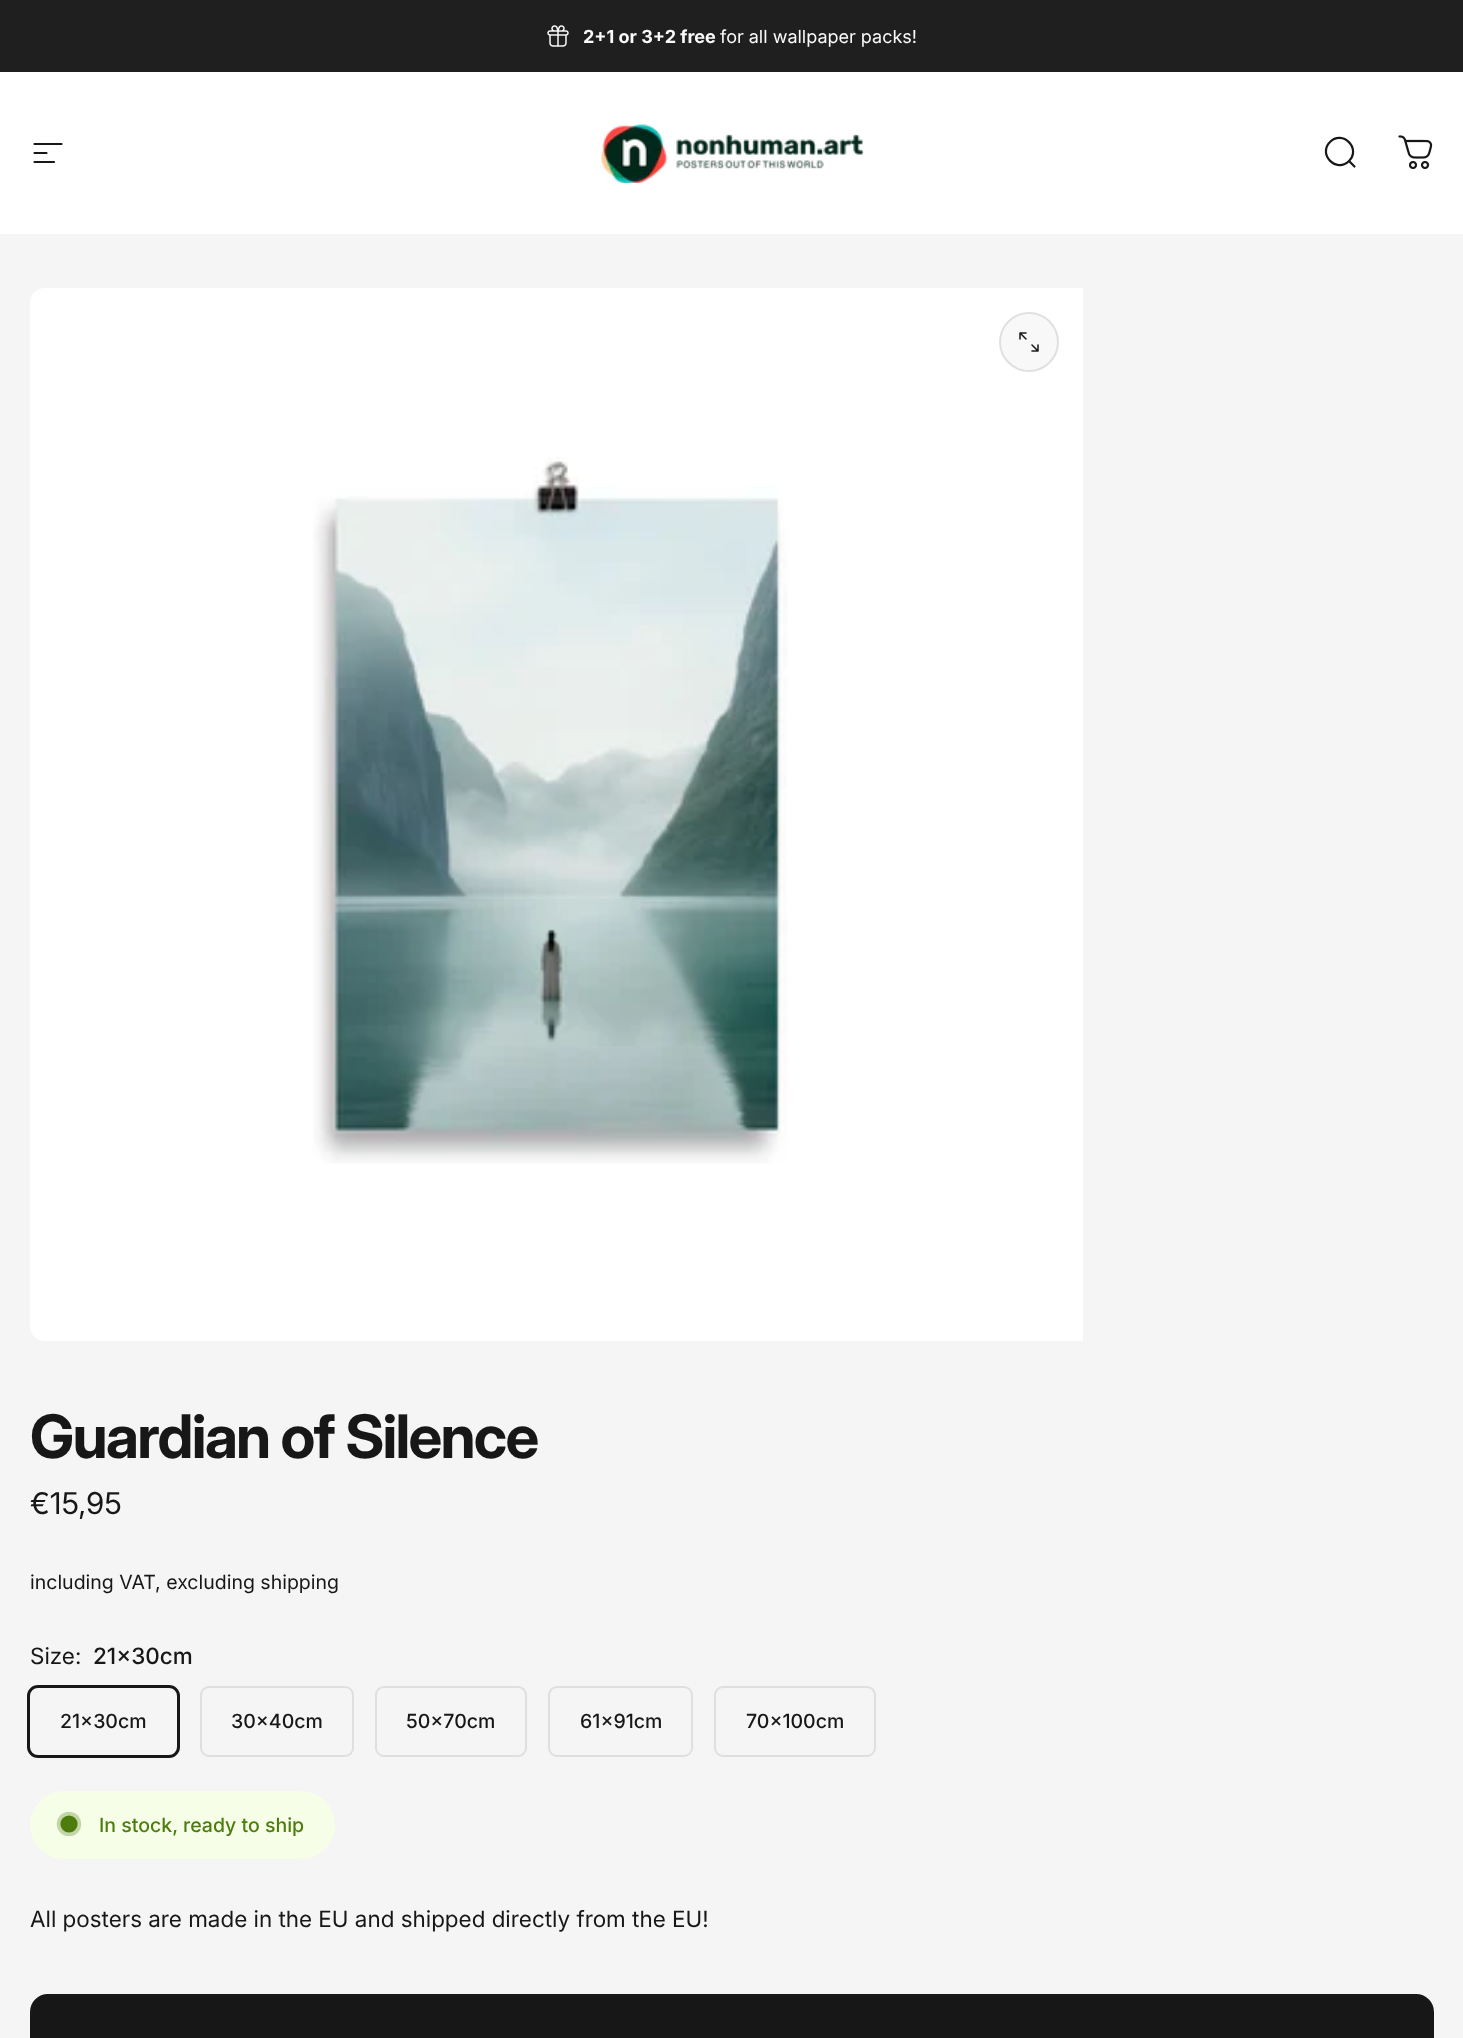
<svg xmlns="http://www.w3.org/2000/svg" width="1463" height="2038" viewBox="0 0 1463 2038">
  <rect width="100%" height="100%" fill="#f5f5f5"/>
  <rect x="0" y="0" width="1463" height="72" fill="#1f1f1f"/>
  <image x="547" y="25" width="22" height="22" href="img1.png"/>
  <text x="583" y="43" font-family="Inter" font-size="18" font-weight="bold" fill="#fafafa">2+1 or 3+2 free</text>
  <text x="720" y="43" font-family="Inter" font-size="18" fill="#fafafa">for all wallpaper packs!</text>
  <rect x="0" y="72" width="1463" height="162" fill="#ffffff"/>
  <path d="M34.5 144H61.5M34.5 153H46.5M34.5 162H54" fill="none" stroke="#171717" stroke-width="2.2" stroke-linecap="round"/>
  <image x="601" y="124" width="263" height="59" href="img2.png"/>
  <path d="M1354.5 166.5L1349 161M1349 161C1361.5 148.5 1342.5 129.5 1330 142C1317.5 154.5 1336.5 173.5 1349 161Z" fill="none" stroke="#171717" stroke-width="2.2" stroke-linecap="round"/>
  <image x="1398" y="135" width="35" height="35" href="img3.png"/>
  <path d="M45 288H1083V1341H45C36.5 1341 30 1334.5 30 1326V303C30 294.5 36.5 288 45 288Z" fill="#ffffff"/>
  <circle cx="1029" cy="342" r="30" fill="#f8f8f8"/>
  <circle cx="1029" cy="342" r="29" fill="none" stroke="#171717" stroke-opacity="0.1" stroke-width="2"/>
  <image x="1019" y="332" width="20" height="20" href="img4.png"/>
  <image x="313" y="457" width="475" height="707" href="img5.png"/>
  <text x="30" y="1458" font-family="'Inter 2'" font-size="60" font-weight="bold" letter-spacing="-1.75" fill="#171717">Guardian of Silence</text>
  <text x="30" y="1514" font-family="'Inter 2'" font-size="30" fill="#171717">€15,95</text>
  <text x="30" y="1589" font-family="Inter" font-size="19.5" fill="#171717">including VAT, excluding shipping</text>
  <text x="30" y="1664" font-family="'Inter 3'" font-size="22.5" fill="#171717">Size:</text>
  <text x="93" y="1664" font-family="Inter" font-size="22.5" font-weight="500" fill="#171717">21×30cm</text>
  <rect x="28.5" y="1686.5" width="150" height="70" rx="9.5" fill="none" stroke="#171717" stroke-width="3"/>
  <text x="60" y="1728" font-family="Inter" font-size="19.5" font-weight="500" fill="#171717">21×30cm</text>
  <rect x="201" y="1687" width="152" height="69" rx="8" fill="none" stroke="#dfdfdf" stroke-width="2"/>
  <text x="231" y="1728" font-family="Inter" font-size="19.5" font-weight="500" fill="#171717">30x40cm</text>
  <rect x="376" y="1687" width="150" height="69" rx="8" fill="none" stroke="#dfdfdf" stroke-width="2"/>
  <text x="406" y="1728" font-family="Inter" font-size="19.5" font-weight="500" fill="#171717">50x70cm</text>
  <rect x="549" y="1687" width="143" height="69" rx="8" fill="none" stroke="#dfdfdf" stroke-width="2"/>
  <text x="580" y="1728" font-family="Inter" font-size="19.5" font-weight="500" fill="#171717">61×91cm</text>
  <rect x="715" y="1687" width="160" height="69" rx="8" fill="none" stroke="#dfdfdf" stroke-width="2"/>
  <text x="746" y="1728" font-family="Inter" font-size="19.5" font-weight="500" fill="#171717">70×100cm</text>
  <rect x="30" y="1791" width="305" height="68" rx="34" fill="#f7fee7"/>
  <circle cx="69" cy="1824" r="7.5" fill="#4d7c0f" stroke="#4d7c0f" stroke-width="2.2"/>
  <circle cx="69" cy="1824" r="10" fill="none" stroke="#4d7c0f" stroke-opacity="0.3" stroke-width="4.5"/>
  <text x="99" y="1832" font-family="Inter" font-size="19.5" font-weight="500" fill="#4d7c0f">In stock, ready to ship</text>
  <text x="30" y="1927" font-family="'Inter 3'" font-size="22.5" fill="#171717">All posters are made in the EU and shipped directly from the EU!</text>
  <rect x="31.5" y="1995.5" width="1401" height="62" rx="16.5" fill="#171717" stroke="#171717" stroke-width="3"/>
</svg>
